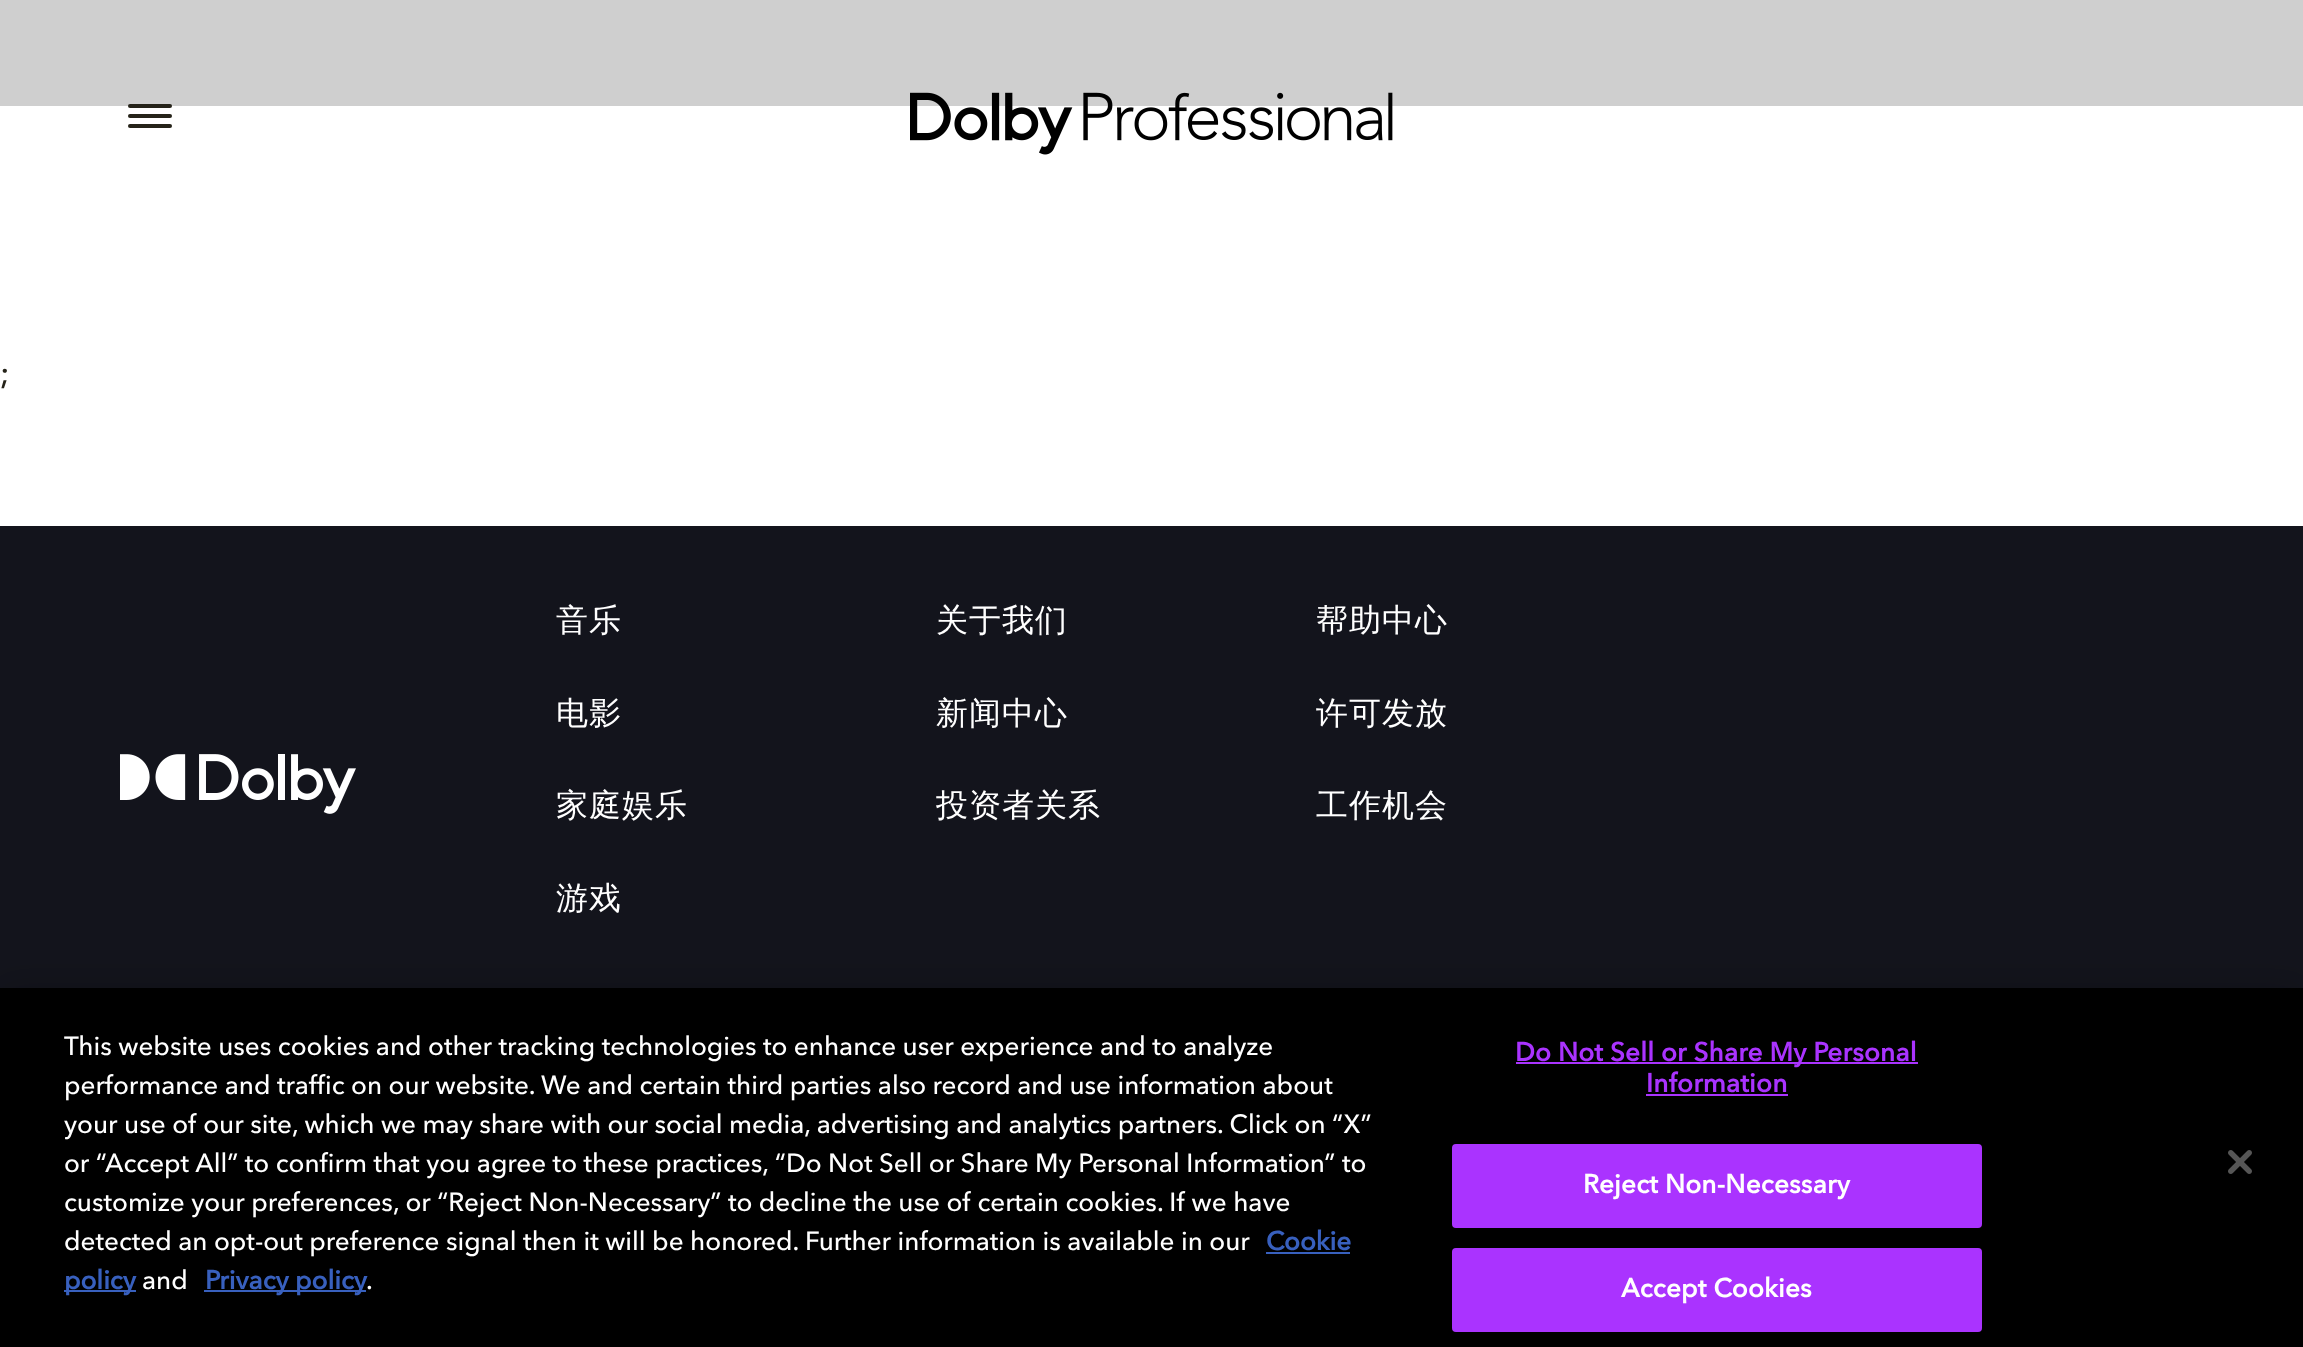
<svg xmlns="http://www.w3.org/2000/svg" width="2303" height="1347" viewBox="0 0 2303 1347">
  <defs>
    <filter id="blur1" x="-50%" y="-200%" width="200%" height="500%"><feGaussianBlur stdDeviation="18"/></filter>
  </defs>
  <rect width="100%" height="100%" fill="#ffffff"/>
  <rect x="0" y="0" width="2303" height="106" fill="#cfcfcf"/>
  <rect x="128" y="104" width="44" height="4" rx="2" fill="#252319"/>
  <rect x="128" y="114" width="44" height="4" rx="2" fill="#252319"/>
  <rect x="128" y="124" width="44" height="4" rx="2" fill="#252319"/>
  <image x="910" y="92" width="483" height="63" href="img1.png"/>
  <text x="0" y="384" font-family="Avenir Next" font-size="32" font-weight="500" fill="#252319">;</text>
  <rect x="0" y="526" width="2303" height="462" fill="#13141c"/>
  <image x="120" y="754" width="236" height="60" href="img2.png"/>
  <text x="556" y="631" font-family="WenQuanYi Zen Hei" font-size="32" font-weight="500" letter-spacing="1" fill="#ffffff">音乐</text>
  <text x="556" y="724" font-family="WenQuanYi Zen Hei" font-size="32" font-weight="500" letter-spacing="1" fill="#ffffff">电影</text>
  <text x="556" y="816" font-family="WenQuanYi Zen Hei" font-size="32" font-weight="500" letter-spacing="1" fill="#ffffff">家庭娱乐</text>
  <text x="556" y="909" font-family="WenQuanYi Zen Hei" font-size="32" font-weight="500" letter-spacing="1" fill="#ffffff">游戏</text>
  <text x="936" y="631" font-family="WenQuanYi Zen Hei" font-size="32" font-weight="500" letter-spacing="1" fill="#ffffff">关于我们</text>
  <text x="936" y="724" font-family="WenQuanYi Zen Hei" font-size="32" font-weight="500" letter-spacing="1" fill="#ffffff">新闻中心</text>
  <text x="936" y="816" font-family="WenQuanYi Zen Hei" font-size="32" font-weight="500" letter-spacing="1" fill="#ffffff">投资者关系</text>
  <text x="1316" y="631" font-family="WenQuanYi Zen Hei" font-size="32" font-weight="500" letter-spacing="1" fill="#ffffff">帮助中心</text>
  <text x="1316" y="724" font-family="WenQuanYi Zen Hei" font-size="32" font-weight="500" letter-spacing="1" fill="#ffffff">许可发放</text>
  <text x="1316" y="816" font-family="WenQuanYi Zen Hei" font-size="32" font-weight="500" letter-spacing="1" fill="#ffffff">工作机会</text>
  <rect x="0" y="988" width="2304" height="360" fill="#000000" fill-opacity="0.2" filter="url(#blur1)"/>
  <rect x="0" y="988" width="2303" height="359" fill="#000000"/>
  <text x="64" y="1055" font-family="Avenir Next" font-size="26.02" font-weight="500" fill="#ffffff">This website uses cookies and other tracking technologies to enhance user experience and to analyze</text>
  <text x="64" y="1094" font-family="Avenir Next" font-size="26.02" font-weight="500" fill="#ffffff">performance and traffic on our website. We and certain third parties also record and use information about</text>
  <text x="64" y="1133" font-family="Avenir Next" font-size="26.02" font-weight="500" fill="#ffffff">your use of our site, which we may share with our social media, advertising and analytics partners. Click on “X”</text>
  <text x="64" y="1172" font-family="Avenir Next" font-size="26.02" font-weight="500" fill="#ffffff">or “Accept All” to confirm that you agree to these practices, “Do Not Sell or Share My Personal Information” to</text>
  <text x="64" y="1211" font-family="Avenir Next" font-size="26.02" font-weight="500" fill="#ffffff">customize your preferences, or “Reject Non-Necessary” to decline the use of certain cookies. If we have</text>
  <text x="64" y="1250" font-family="Avenir Next" font-size="26.02" font-weight="500" fill="#ffffff">detected an opt-out preference signal then it will be honored. Further information is available in our</text>
  <text x="1266" y="1250" font-family="Avenir Next" font-size="26.02" font-weight="bold" fill="#3860be">Cookie</text>
  <rect x="1266" y="1252" width="84" height="2" fill="#3860be"/>
  <rect x="64" y="1290" width="72" height="2" fill="#3860be"/>
  <text x="64" y="1289" font-family="Avenir Next" font-size="26.02" font-weight="bold" fill="#3860be">policy</text>
  <text x="142" y="1289" font-family="Avenir Next" font-size="26.02" font-weight="500" fill="#ffffff">and</text>
  <rect x="204" y="1290" width="162" height="2" fill="#3860be"/>
  <text x="205" y="1289" font-family="Avenir Next" font-size="26.02" font-weight="bold" fill="#3860be">Privacy policy</text>
  <text x="366" y="1289" font-family="Avenir Next" font-size="26.02" font-weight="500" fill="#ffffff">.</text>
  <rect x="1516" y="1062" width="402" height="2" fill="#aa33ff"/>
  <text x="1515" y="1061" font-family="Avenir Next" font-size="26.02" font-weight="bold" letter-spacing="0.25" fill="#aa33ff">Do Not Sell or Share My Personal</text>
  <text x="1646" y="1092" font-family="Avenir Next" font-size="26.02" font-weight="bold" letter-spacing="0.25" fill="#aa33ff">Information</text>
  <rect x="1646" y="1094" width="142" height="2" fill="#aa33ff"/>
  <rect x="1453" y="1145" width="528" height="82" rx="3" fill="#aa33ff" stroke="#aa33ff" stroke-width="2"/>
  <text x="1583" y="1193" font-family="Avenir Next" font-size="26.02" font-weight="bold" letter-spacing="0.25" fill="#ffffff">Reject Non-Necessary</text>
  <rect x="1453" y="1249" width="528" height="82" rx="3" fill="#aa33ff" stroke="#aa33ff" stroke-width="2"/>
  <text x="1621" y="1297" font-family="Avenir Next" font-size="26.02" font-weight="bold" letter-spacing="0.25" fill="#ffffff">Accept Cookies</text>
  <image x="2228" y="1150" width="24" height="24" href="img3.png"/>
</svg>
